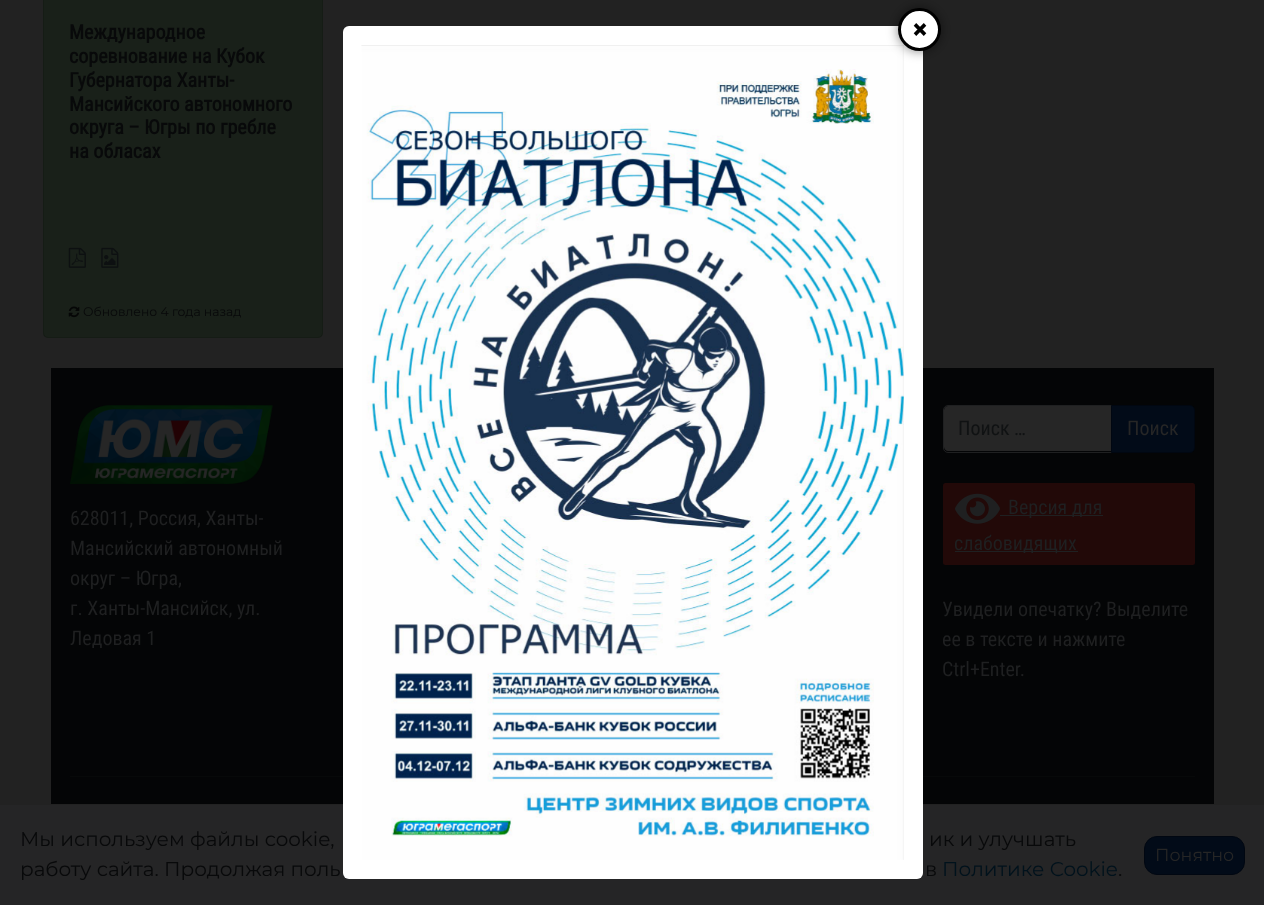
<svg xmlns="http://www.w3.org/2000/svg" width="1264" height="905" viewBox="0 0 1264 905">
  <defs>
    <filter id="blur1" x="-50%" y="-200%" width="200%" height="500%"><feGaussianBlur stdDeviation="6"/></filter>
  </defs>
  <rect width="100%" height="100%" fill="#222222"/>
  <rect x="51" y="368" width="1163" height="436" fill="#040506"/>
  <rect x="70" y="776" width="1125" height="1" fill="#070909"/>
  <rect x="0" y="805" width="1264" height="100" fill="#252526"/>
  <rect x="343" y="26" width="580" height="853" rx="6" fill="#ffffff"/>
  <image x="361" y="45" width="543" height="815" href="img1.png"/>
  <rect x="898" y="8" width="43" height="43" rx="21.5" fill="#000000" fill-opacity="0.5" filter="url(#blur1)"/>
  <circle cx="919.5" cy="29.5" r="20" fill="#ffffff" stroke="#000000" stroke-width="3"/>
  <text x="911" y="40" font-family="Montserrat" font-size="30" font-weight="bold" fill="#000000">×</text>
  <rect x="43" y="-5" width="280" height="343" rx="5" fill="#192019"/>
  <rect x="43.5" y="-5.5" width="279" height="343" rx="4.5" fill="none" stroke="#000000" stroke-opacity="0.12"/>
  <text x="69" y="39" font-family="Roboto Condensed" font-size="20" font-weight="bold" fill="#08090a">Международное</text>
  <text x="69" y="63" font-family="Roboto Condensed" font-size="20" font-weight="bold" fill="#08090a">соревнование на Кубок</text>
  <text x="69" y="87" font-family="Roboto Condensed" font-size="20" font-weight="bold" fill="#08090a">Губернатора Ханты-</text>
  <text x="69" y="111" font-family="Roboto Condensed" font-size="20" font-weight="bold" fill="#08090a">Мансийского автономного</text>
  <text x="69" y="134" font-family="Roboto Condensed" font-size="20" font-weight="bold" fill="#08090a">округа – Югры по гребле</text>
  <text x="69" y="158" font-family="Roboto Condensed" font-size="20" font-weight="bold" fill="#08090a">на обласах</text>
  <image x="68" y="247" width="18" height="21" href="img2.png"/>
  <image x="101" y="247" width="18" height="21" href="img3.png"/>
  <image x="68" y="306" width="12" height="12" href="img4.png"/>
  <text x="83" y="316" font-family="Montserrat" font-size="12.4" fill="#08090a">Обновлено 4 года назад</text>
  <image x="70" y="405" width="203" height="79" href="img5.png"/>
  <text x="70" y="525" font-family="Roboto Condensed" font-size="20" fill="#1f2021">628011, Россия, Ханты-</text>
  <text x="70" y="555" font-family="Roboto Condensed" font-size="20" fill="#1f2021">Мансийский автономный</text>
  <text x="70" y="585" font-family="Roboto Condensed" font-size="20" fill="#1f2021">округ – Югра,</text>
  <text x="70" y="615" font-family="Roboto Condensed" font-size="20" fill="#1f2021">г. Ханты-Мансийск, ул.</text>
  <text x="70" y="645" font-family="Roboto Condensed" font-size="20" fill="#1f2021">Ледовая 1</text>
  <path d="M948 406H1111V451H948C946 451 944 449 944 447V410C944 408 946 406 948 406Z" fill="#262626"/>
  <path d="M948 405.5H1112.5V452.5H948C945.5 452.5 943.5 450.5 943.5 448V410C943.5 407.5 945.5 405.5 948 405.5Z" fill="none" stroke="#1f2021"/>
  <text x="958" y="435" font-family="Roboto Condensed" font-size="20" fill="#101213">Поиск …</text>
  <path d="M1111.5 405.5H1190C1192.5 405.5 1194.5 407.5 1194.5 410V448C1194.5 450.5 1192.5 452.5 1190 452.5H1111.5Z" fill="#020b18" stroke="#010711"/>
  <text x="1127" y="435" font-family="Roboto Condensed" font-size="20" fill="#262626">Поиск</text>
  <rect x="943" y="483" width="252" height="82" rx="2.5" fill="#220908"/>
  <image x="955" y="493" width="45" height="31" href="img6.png"/>
  <rect x="1000" y="515" width="103" height="1" fill="#1f2021"/>
  <text x="1008" y="514" font-family="Roboto Condensed" font-size="20" fill="#1f2021">Версия для</text>
  <rect x="955" y="551" width="123" height="1" fill="#1f2021"/>
  <text x="954" y="550" font-family="Roboto Condensed" font-size="20" fill="#1f2021">слабовидящих</text>
  <text x="942" y="616" font-family="Roboto Condensed" font-size="20" fill="#1f2021">Увидели опечатку? Выделите</text>
  <text x="942" y="646" font-family="Roboto Condensed" font-size="20" fill="#1f2021">ее в тексте и нажмите</text>
  <text x="942" y="676" font-family="Roboto Condensed" font-size="20" fill="#1f2021">Ctrl+Enter.</text>
  <text x="20" y="846" font-family="Montserrat" font-size="20" fill="#08090a">Мы используем файлы cookie,</text>
  <text x="929" y="846" font-family="Montserrat" font-size="20" fill="#08090a">ик и улучшать</text>
  <text x="20" y="876" font-family="Montserrat" font-size="20" fill="#08090a">работу сайта. Продолжая поль</text>
  <text x="925" y="876" font-family="Montserrat" font-size="20" fill="#08090a">в</text>
  <text x="942" y="876" font-family="Montserrat" font-size="20" fill="#00121c">Политике Cookie</text>
  <text x="1118" y="876" font-family="Montserrat" font-size="20" fill="#08090a">.</text>
  <rect x="1144.5" y="836.5" width="100" height="38" rx="12.5" fill="#020b18" stroke="#010711"/>
  <text x="1155" y="861" font-family="Montserrat" font-size="17.5" fill="#262626">Понятно</text>
</svg>
